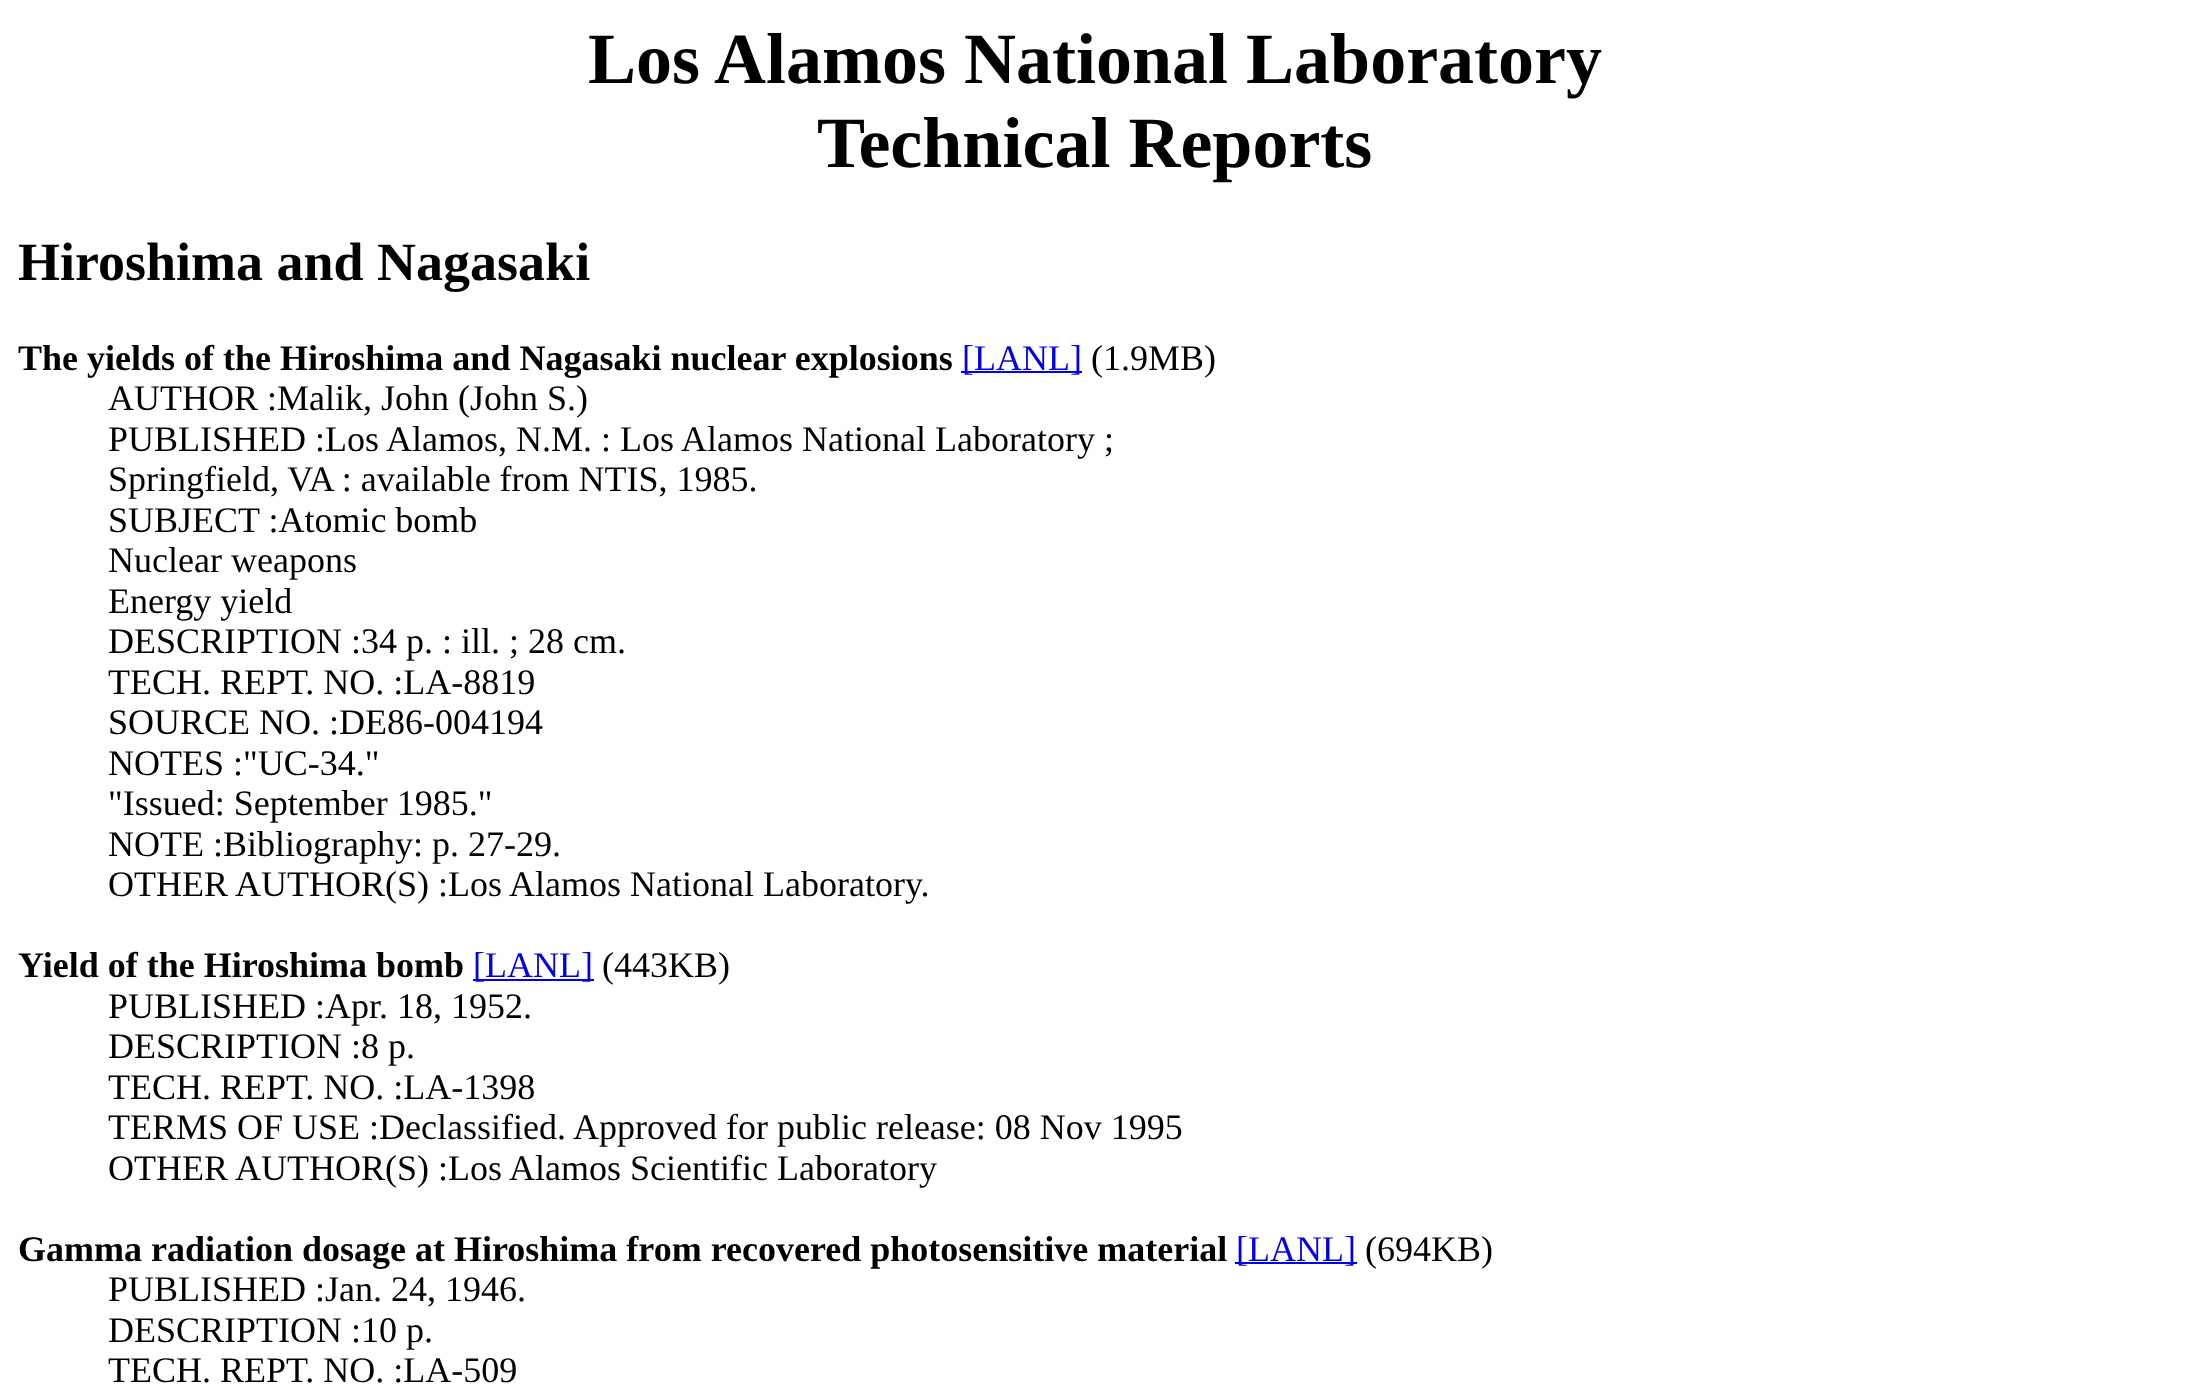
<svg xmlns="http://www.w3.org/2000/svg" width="2188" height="1385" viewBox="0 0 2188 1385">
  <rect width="100%" height="100%" fill="#ffffff"/>
  <text x="588" y="83" font-family="Liberation Serif" font-size="72" font-weight="bold" fill="#000000">Los Alamos National Laboratory</text>
  <text x="817" y="167" font-family="Liberation Serif" font-size="72" font-weight="bold" fill="#000000">Technical Reports</text>
  <text x="18" y="280" font-family="Liberation Serif" font-size="54" font-weight="bold" fill="#000000">Hiroshima and Nagasaki</text>
  <text x="18" y="370" font-family="Liberation Serif" font-size="36" font-weight="bold" fill="#000000">The yields of the Hiroshima and Nagasaki nuclear explosions</text>
  <rect x="961" y="371" width="121" height="2" fill="#0000ee"/>
  <text x="962" y="370" font-family="Liberation Serif" font-size="36" fill="#0000ee">[LANL]</text>
  <text x="1091" y="370" font-family="Liberation Serif" font-size="36" fill="#000000">(1.9MB)</text>
  <text x="108" y="410" font-family="Liberation Serif" font-size="36" fill="#000000">AUTHOR :Malik, John (John S.)</text>
  <text x="108" y="451" font-family="Liberation Serif" font-size="36" fill="#000000">PUBLISHED :Los Alamos, N.M. : Los Alamos National Laboratory ;</text>
  <text x="108" y="491" font-family="Liberation Serif" font-size="36" fill="#000000">Springfield, VA : available from NTIS, 1985.</text>
  <text x="108" y="532" font-family="Liberation Serif" font-size="36" fill="#000000">SUBJECT :Atomic bomb</text>
  <text x="108" y="572" font-family="Liberation Serif" font-size="36" fill="#000000">Nuclear weapons</text>
  <text x="108" y="613" font-family="Liberation Serif" font-size="36" fill="#000000">Energy yield</text>
  <text x="108" y="653" font-family="Liberation Serif" font-size="36" fill="#000000">DESCRIPTION :34 p. : ill. ; 28 cm.</text>
  <text x="108" y="694" font-family="Liberation Serif" font-size="36" fill="#000000">TECH. REPT. NO. :LA-8819</text>
  <text x="108" y="734" font-family="Liberation Serif" font-size="36" fill="#000000">SOURCE NO. :DE86-004194</text>
  <text x="108" y="775" font-family="Liberation Serif" font-size="36" fill="#000000">NOTES :"UC-34."</text>
  <text x="108" y="815" font-family="Liberation Serif" font-size="36" fill="#000000">"Issued: September 1985."</text>
  <text x="108" y="856" font-family="Liberation Serif" font-size="36" fill="#000000">NOTE :Bibliography: p. 27-29.</text>
  <text x="108" y="896" font-family="Liberation Serif" font-size="36" fill="#000000">OTHER AUTHOR(S) :Los Alamos National Laboratory.</text>
  <text x="18" y="977" font-family="Liberation Serif" font-size="36" font-weight="bold" fill="#000000">Yield of the Hiroshima bomb</text>
  <rect x="473" y="979" width="121" height="2" fill="#0000ee"/>
  <text x="473" y="977" font-family="Liberation Serif" font-size="36" fill="#0000ee">[LANL]</text>
  <text x="602" y="977" font-family="Liberation Serif" font-size="36" fill="#000000">(443KB)</text>
  <text x="108" y="1018" font-family="Liberation Serif" font-size="36" fill="#000000">PUBLISHED :Apr. 18, 1952.</text>
  <text x="108" y="1058" font-family="Liberation Serif" font-size="36" fill="#000000">DESCRIPTION :8 p.</text>
  <text x="108" y="1099" font-family="Liberation Serif" font-size="36" fill="#000000">TECH. REPT. NO. :LA-1398</text>
  <text x="108" y="1139" font-family="Liberation Serif" font-size="36" fill="#000000">TERMS OF USE :Declassified. Approved for public release: 08 Nov 1995</text>
  <text x="108" y="1180" font-family="Liberation Serif" font-size="36" fill="#000000">OTHER AUTHOR(S) :Los Alamos Scientific Laboratory</text>
  <text x="18" y="1261" font-family="Liberation Serif" font-size="36" font-weight="bold" fill="#000000">Gamma radiation dosage at Hiroshima from recovered photosensitive material</text>
  <rect x="1235" y="1262" width="122" height="2" fill="#0000ee"/>
  <text x="1236" y="1261" font-family="Liberation Serif" font-size="36" fill="#0000ee">[LANL]</text>
  <text x="1365" y="1261" font-family="Liberation Serif" font-size="36" fill="#000000">(694KB)</text>
  <text x="108" y="1301" font-family="Liberation Serif" font-size="36" fill="#000000">PUBLISHED :Jan. 24, 1946.</text>
  <text x="108" y="1342" font-family="Liberation Serif" font-size="36" fill="#000000">DESCRIPTION :10 p.</text>
  <text x="108" y="1382" font-family="Liberation Serif" font-size="36" fill="#000000">TECH. REPT. NO. :LA-509</text>
</svg>
